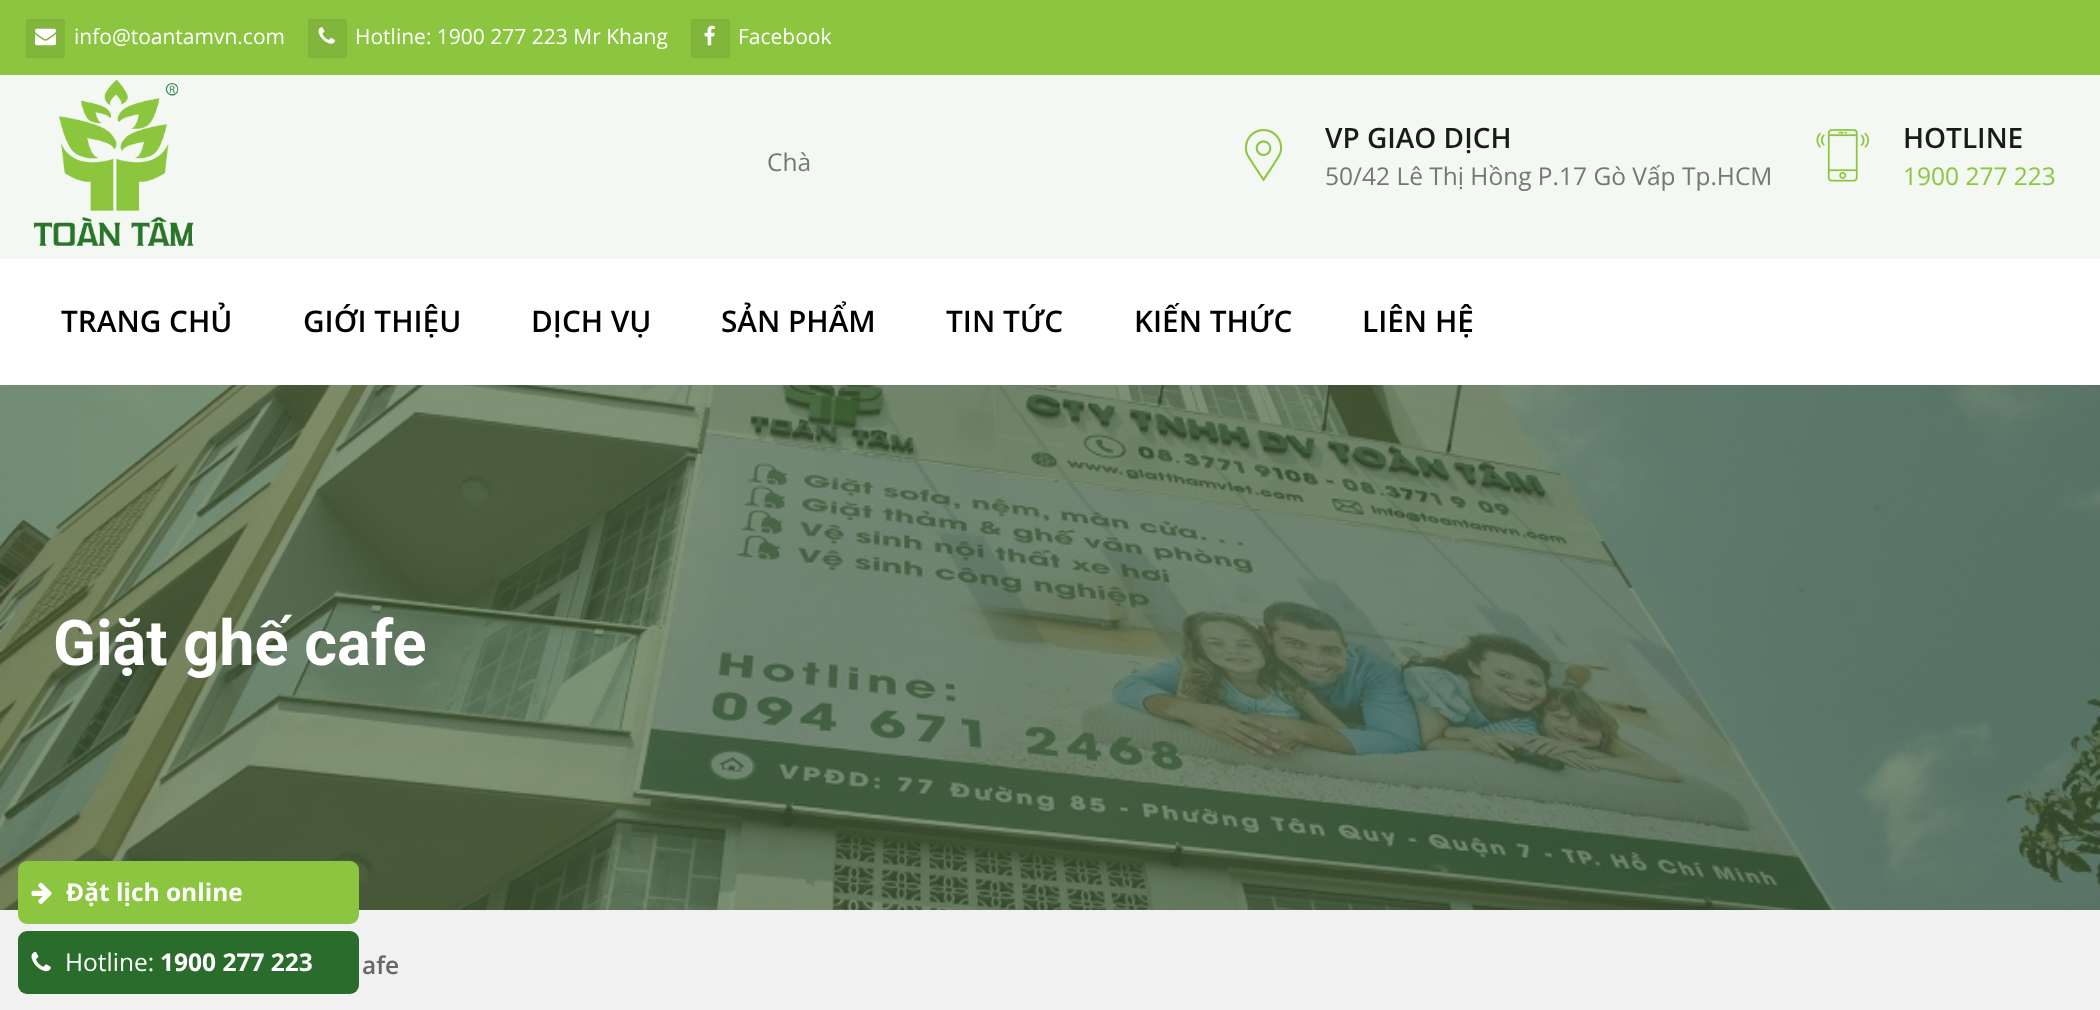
<svg xmlns="http://www.w3.org/2000/svg" width="2100" height="1010" viewBox="0 0 2100 1010">
  <rect width="100%" height="100%" fill="#ffffff"/>
  <rect x="0" y="0" width="2100" height="75" fill="#8cc540"/>
  <rect x="27" y="20" width="37" height="37" rx="1" fill="#81b53b" stroke="#80b33a" stroke-width="2"/>
  <image x="35" y="28" width="21" height="18" href="img1.png"/>
  <text x="74" y="44" font-family="Open Sans" font-size="21" fill="#ffffff">info@toantamvn.com</text>
  <rect x="309" y="20" width="37" height="37" rx="1" fill="#81b53b" stroke="#80b33a" stroke-width="2"/>
  <image x="318" y="27" width="17" height="17" href="img2.png"/>
  <text x="355" y="44" font-family="Open Sans" font-size="21" fill="#ffffff">Hotline: 1900 277 223 Mr Khang</text>
  <rect x="692" y="20" width="37" height="37" rx="1" fill="#81b53b" stroke="#80b33a" stroke-width="2"/>
  <image x="704" y="25" width="11" height="21" href="img3.png"/>
  <text x="738" y="44" font-family="Open Sans" font-size="21" fill="#ffffff">Facebook</text>
  <rect x="0" y="75" width="2100" height="184" fill="#f4f8f2"/>
  <image x="34" y="79" width="160" height="167" href="img4.png"/>
  <text x="767" y="171" font-family="Open Sans" font-size="24.5" fill="#767676">Chà</text>
  <image x="1244" y="129" width="39" height="53" href="img5.png"/>
  <text x="1325" y="148" font-family="Open Sans" font-size="28" font-weight="600" fill="#1a1a1a">VP GIAO DỊCH</text>
  <text x="1325" y="185" font-family="Open Sans" font-size="24.5" fill="#767676">50/42 Lê Thị Hồng P.17 Gò Vấp Tp.HCM</text>
  <image x="1816" y="129" width="53" height="53" href="img6.png"/>
  <text x="1903" y="148" font-family="Open Sans" font-size="28" font-weight="600" fill="#1a1a1a">HOTLINE</text>
  <text x="1903" y="185" font-family="Open Sans" font-size="24.5" fill="#8cc540">1900 277 223</text>
  <text x="61" y="332" font-family="Open Sans" font-size="29.75" font-weight="600" fill="#000000">TRANG CHỦ</text>
  <text x="303" y="332" font-family="Open Sans" font-size="29.75" font-weight="600" fill="#000000">GIỚI THIỆU</text>
  <text x="531" y="332" font-family="Open Sans" font-size="29.75" font-weight="600" fill="#000000">DỊCH VỤ</text>
  <text x="721" y="332" font-family="Open Sans" font-size="29.75" font-weight="600" fill="#000000">SẢN PHẨM</text>
  <text x="946" y="332" font-family="Open Sans" font-size="29.75" font-weight="600" fill="#000000">TIN TỨC</text>
  <text x="1134" y="332" font-family="Open Sans" font-size="29.75" font-weight="600" fill="#000000">KIẾN THỨC</text>
  <text x="1362" y="332" font-family="Open Sans" font-size="29.75" font-weight="600" fill="#000000">LIÊN HỆ</text>
  <image x="0" y="385" width="2100" height="525" href="img7.png"/>
  <text x="53" y="665" font-family="Roboto" font-size="63" font-weight="bold" fill="#ffffff">Giặt ghế cafe</text>
  <rect x="0" y="910" width="2100" height="100" fill="#f1f1f1"/>
  <text x="362" y="974" font-family="Open Sans" font-size="24.5" font-weight="600" fill="#676767">afe</text>
  <rect x="18" y="861" width="341" height="63" rx="9" fill="#8cc540"/>
  <image x="31" y="882" width="21" height="22" href="img8.png"/>
  <text x="66" y="901" font-family="Open Sans" font-size="24.5" font-weight="bold" fill="#ffffff">Đặt lịch online</text>
  <rect x="18" y="931" width="341" height="63" rx="9" fill="#2a6c2b"/>
  <image x="31" y="952" width="20" height="20" href="img9.png"/>
  <text x="65" y="971" font-family="Open Sans" font-size="24.5" fill="#ffffff">Hotline:</text>
  <text x="160" y="971" font-family="Open Sans" font-size="24.5" font-weight="bold" fill="#ffffff">1900 277 223</text>
</svg>
